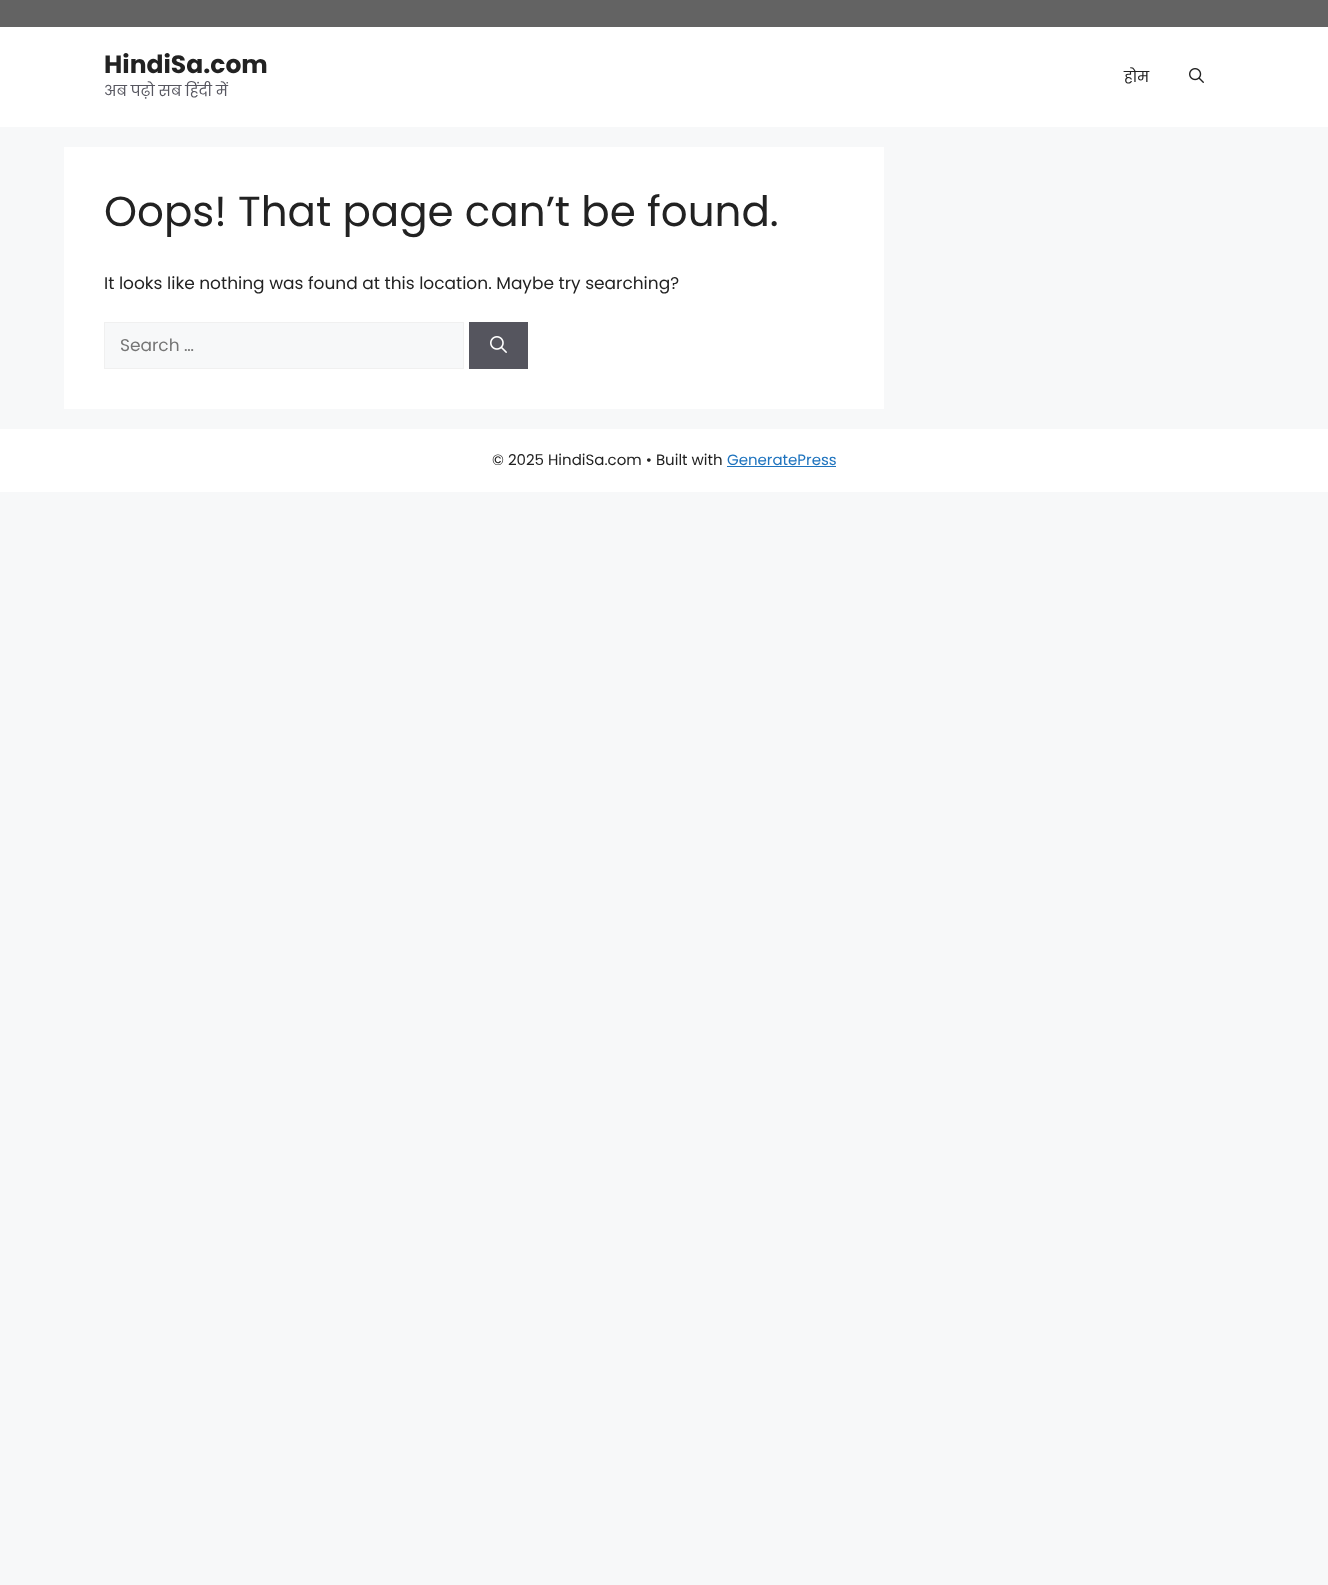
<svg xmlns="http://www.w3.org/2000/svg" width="1328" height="1585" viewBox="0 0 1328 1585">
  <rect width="100%" height="100%" fill="#f7f8f9"/>
  <rect x="0" y="0" width="1328" height="27" fill="#636363"/>
  <rect x="0" y="27" width="1328" height="100" fill="#ffffff"/>
  <text x="104" y="73" font-family="Poppins" font-size="25" font-weight="bold" fill="#222222">HindiSa.com</text>
  <text x="104" y="96" font-family="Poppins" font-size="15" fill="#575760">अब पढ़ो सब हिंदी में</text>
  <text x="1124" y="82" font-family="Poppins" font-size="15" fill="#222222">होम</text>
  <image x="1189" y="68" width="15" height="15" href="img1.png"/>
  <rect x="64" y="147" width="820" height="262" fill="#ffffff"/>
  <text x="104" y="226" font-family="Poppins" font-size="42" fill="#222222">Oops! That page can’t be found.</text>
  <text x="104" y="289" font-family="Poppins" font-size="17" fill="#222222">It looks like nothing was found at this location. Maybe try searching?</text>
  <rect x="104.5" y="322.5" width="359" height="46" fill="#f7f8f9" stroke="#f0f0f0"/>
  <text x="120" y="351" font-family="Poppins" font-size="17" fill="#757575">Search …</text>
  <rect x="469" y="322" width="59" height="47" fill="#55555e"/>
  <image x="490" y="336" width="17" height="17" href="img2.png"/>
  <rect x="0" y="429" width="1328" height="63" fill="#ffffff"/>
  <text x="492" y="465" font-family="Poppins" font-size="15" fill="#222222">© 2025 HindiSa.com • Built with</text>
  <text x="727" y="465" font-family="Poppins" font-size="15" fill="#1e73be">GeneratePress</text>
  <rect x="727" y="466" width="109" height="1" fill="#1e73be"/>
</svg>
